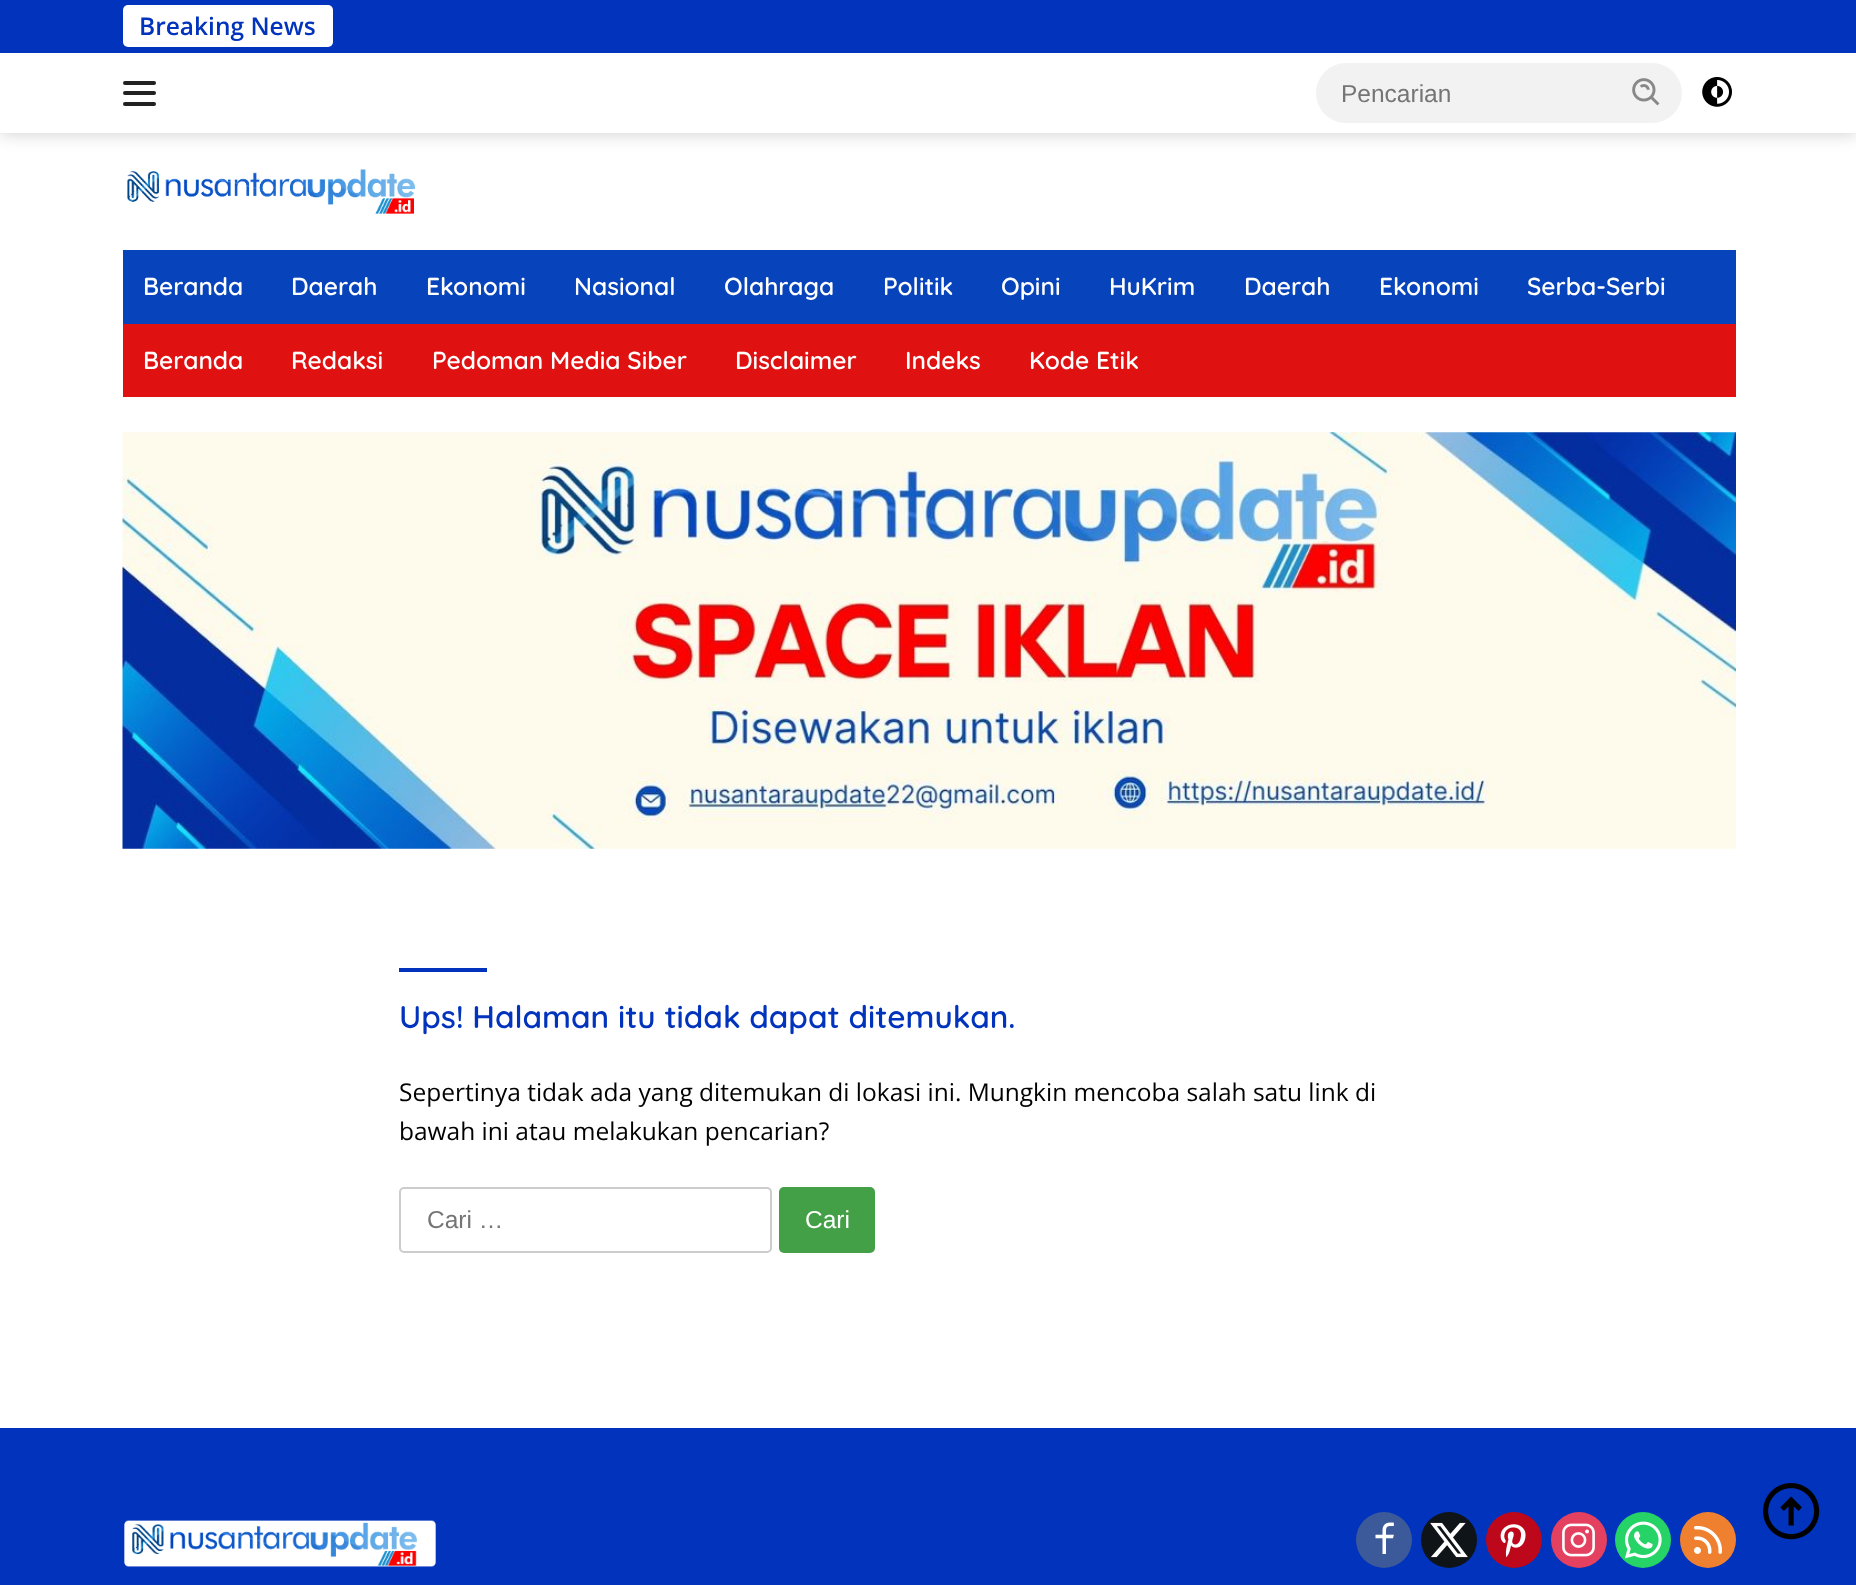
<svg xmlns="http://www.w3.org/2000/svg" width="1856" height="1585" viewBox="0 0 1856 1585">
  <defs>
    <filter id="blur1" x="-50%" y="-200%" width="200%" height="500%"><feGaussianBlur stdDeviation="9"/></filter>
  </defs>
  <rect width="100%" height="100%" fill="#ffffff"/>
  <rect x="0" y="0" width="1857" height="133" fill="#000000" fill-opacity="0.2" filter="url(#blur1)"/>
  <rect x="0" y="53" width="1856" height="80" fill="#ffffff"/>
  <rect x="0" y="0" width="1856" height="53" fill="#0133bc"/>
  <rect x="123" y="5" width="210" height="42" rx="5" fill="#ffffff"/>
  <text x="139" y="35" font-family="Open Sans" font-size="24.5" font-weight="600" fill="#0133bc">Breaking News</text>
  <rect x="123" y="81" width="33" height="4" rx="2" fill="#222222"/>
  <rect x="123" y="91" width="33" height="4" rx="2" fill="#222222"/>
  <rect x="123" y="102" width="33" height="4" rx="2" fill="#222222"/>
  <rect x="1316" y="63" width="366" height="60" rx="30" fill="#f2f2f2"/>
  <text x="1341" y="102" font-family="Liberation Sans" font-size="24.5" fill="#757575">Pencarian</text>
  <image x="1632" y="78" width="28" height="28" href="img1.png"/>
  <image x="1702" y="77" width="30" height="30" href="img2.png"/>
  <image x="127" y="169" width="289" height="45" href="img3.png"/>
  <rect x="123" y="324" width="1613" height="73" fill="#e01111"/>
  <rect x="123" y="250" width="1613" height="74" fill="#0743ba"/>
  <text x="143" y="295" font-family="Quicksand" font-size="24.5" font-weight="600" fill="#ffffff">Beranda</text>
  <text x="291" y="295" font-family="Quicksand" font-size="24.5" font-weight="600" fill="#ffffff">Daerah</text>
  <text x="426" y="295" font-family="Quicksand" font-size="24.5" font-weight="600" fill="#ffffff">Ekonomi</text>
  <text x="574" y="295" font-family="Quicksand" font-size="24.5" font-weight="600" fill="#ffffff">Nasional</text>
  <text x="724" y="295" font-family="Quicksand" font-size="24.5" font-weight="600" fill="#ffffff">Olahraga</text>
  <text x="883" y="295" font-family="Quicksand" font-size="24.5" font-weight="600" fill="#ffffff">Politik</text>
  <text x="1001" y="295" font-family="Quicksand" font-size="24.5" font-weight="600" fill="#ffffff">Opini</text>
  <text x="1109" y="295" font-family="Quicksand" font-size="24.5" font-weight="600" fill="#ffffff">HuKrim</text>
  <text x="1244" y="295" font-family="Quicksand" font-size="24.5" font-weight="600" fill="#ffffff">Daerah</text>
  <text x="1379" y="295" font-family="Quicksand" font-size="24.5" font-weight="600" fill="#ffffff">Ekonomi</text>
  <text x="1527" y="295" font-family="Quicksand" font-size="24.5" font-weight="600" fill="#ffffff">Serba-Serbi</text>
  <text x="143" y="369" font-family="Quicksand" font-size="24.5" font-weight="600" fill="#ffffff">Beranda</text>
  <text x="291" y="369" font-family="Quicksand" font-size="24.5" font-weight="600" fill="#ffffff">Redaksi</text>
  <text x="432" y="369" font-family="Quicksand" font-size="24.5" font-weight="600" fill="#ffffff">Pedoman Media Siber</text>
  <text x="735" y="369" font-family="Quicksand" font-size="24.5" font-weight="600" fill="#ffffff">Disclaimer</text>
  <text x="905" y="369" font-family="Quicksand" font-size="24.5" font-weight="600" fill="#ffffff">Indeks</text>
  <text x="1029" y="369" font-family="Quicksand" font-size="24.5" font-weight="600" fill="#ffffff">Kode Etik</text>
  <image x="122" y="432" width="1614" height="417" href="img4.png"/>
  <rect x="399" y="968" width="88" height="4" fill="#0133bc"/>
  <text x="399" y="1028" font-family="Quicksand" font-size="31.5" font-weight="600" fill="#0133bc">Ups! Halaman itu tidak dapat ditemukan.</text>
  <text x="399" y="1101" font-family="Open Sans" font-size="24.5" fill="#000000">Sepertinya tidak ada yang ditemukan di lokasi ini. Mungkin mencoba salah satu link di</text>
  <text x="399" y="1140" font-family="Open Sans" font-size="24.5" fill="#000000">bawah ini atau melakukan pencarian?</text>
  <rect x="400" y="1188" width="371" height="64" rx="4" fill="none" stroke="#cccccc" stroke-width="2"/>
  <text x="427" y="1228" font-family="Liberation Sans" font-size="24.5" fill="#757575">Cari …</text>
  <rect x="779" y="1187" width="96" height="66" rx="5" fill="#43a047"/>
  <text x="805" y="1228" font-family="Liberation Sans" font-size="24.5" fill="#ffffff">Cari</text>
  <rect x="0" y="1428" width="1856" height="157" fill="#0133bc"/>
  <image x="124" y="1520" width="312" height="47" href="img5.png"/>
  <circle cx="1384" cy="1540" r="28" fill="#3c5a99"/>
  <image x="1375" y="1522" width="19" height="32" href="img6.png"/>
  <circle cx="1449" cy="1540" r="28" fill="#0f1419"/>
  <image x="1430" y="1522" width="38" height="36" href="img7.png"/>
  <circle cx="1514" cy="1540" r="28" fill="#bd081c"/>
  <image x="1500" y="1524" width="26" height="33" href="img8.png"/>
  <circle cx="1579" cy="1540" r="28" fill="#e4405f"/>
  <image x="1562" y="1523" width="33" height="34" href="img9.png"/>
  <circle cx="1643" cy="1540" r="28" fill="#25d366"/>
  <image x="1624" y="1521" width="38" height="38" href="img10.png"/>
  <circle cx="1708" cy="1540" r="28" fill="#ee802f"/>
  <image x="1694" y="1525" width="28" height="29" href="img11.png"/>
  <image x="1763" y="1483" width="57" height="57" href="img12.png"/>
</svg>
